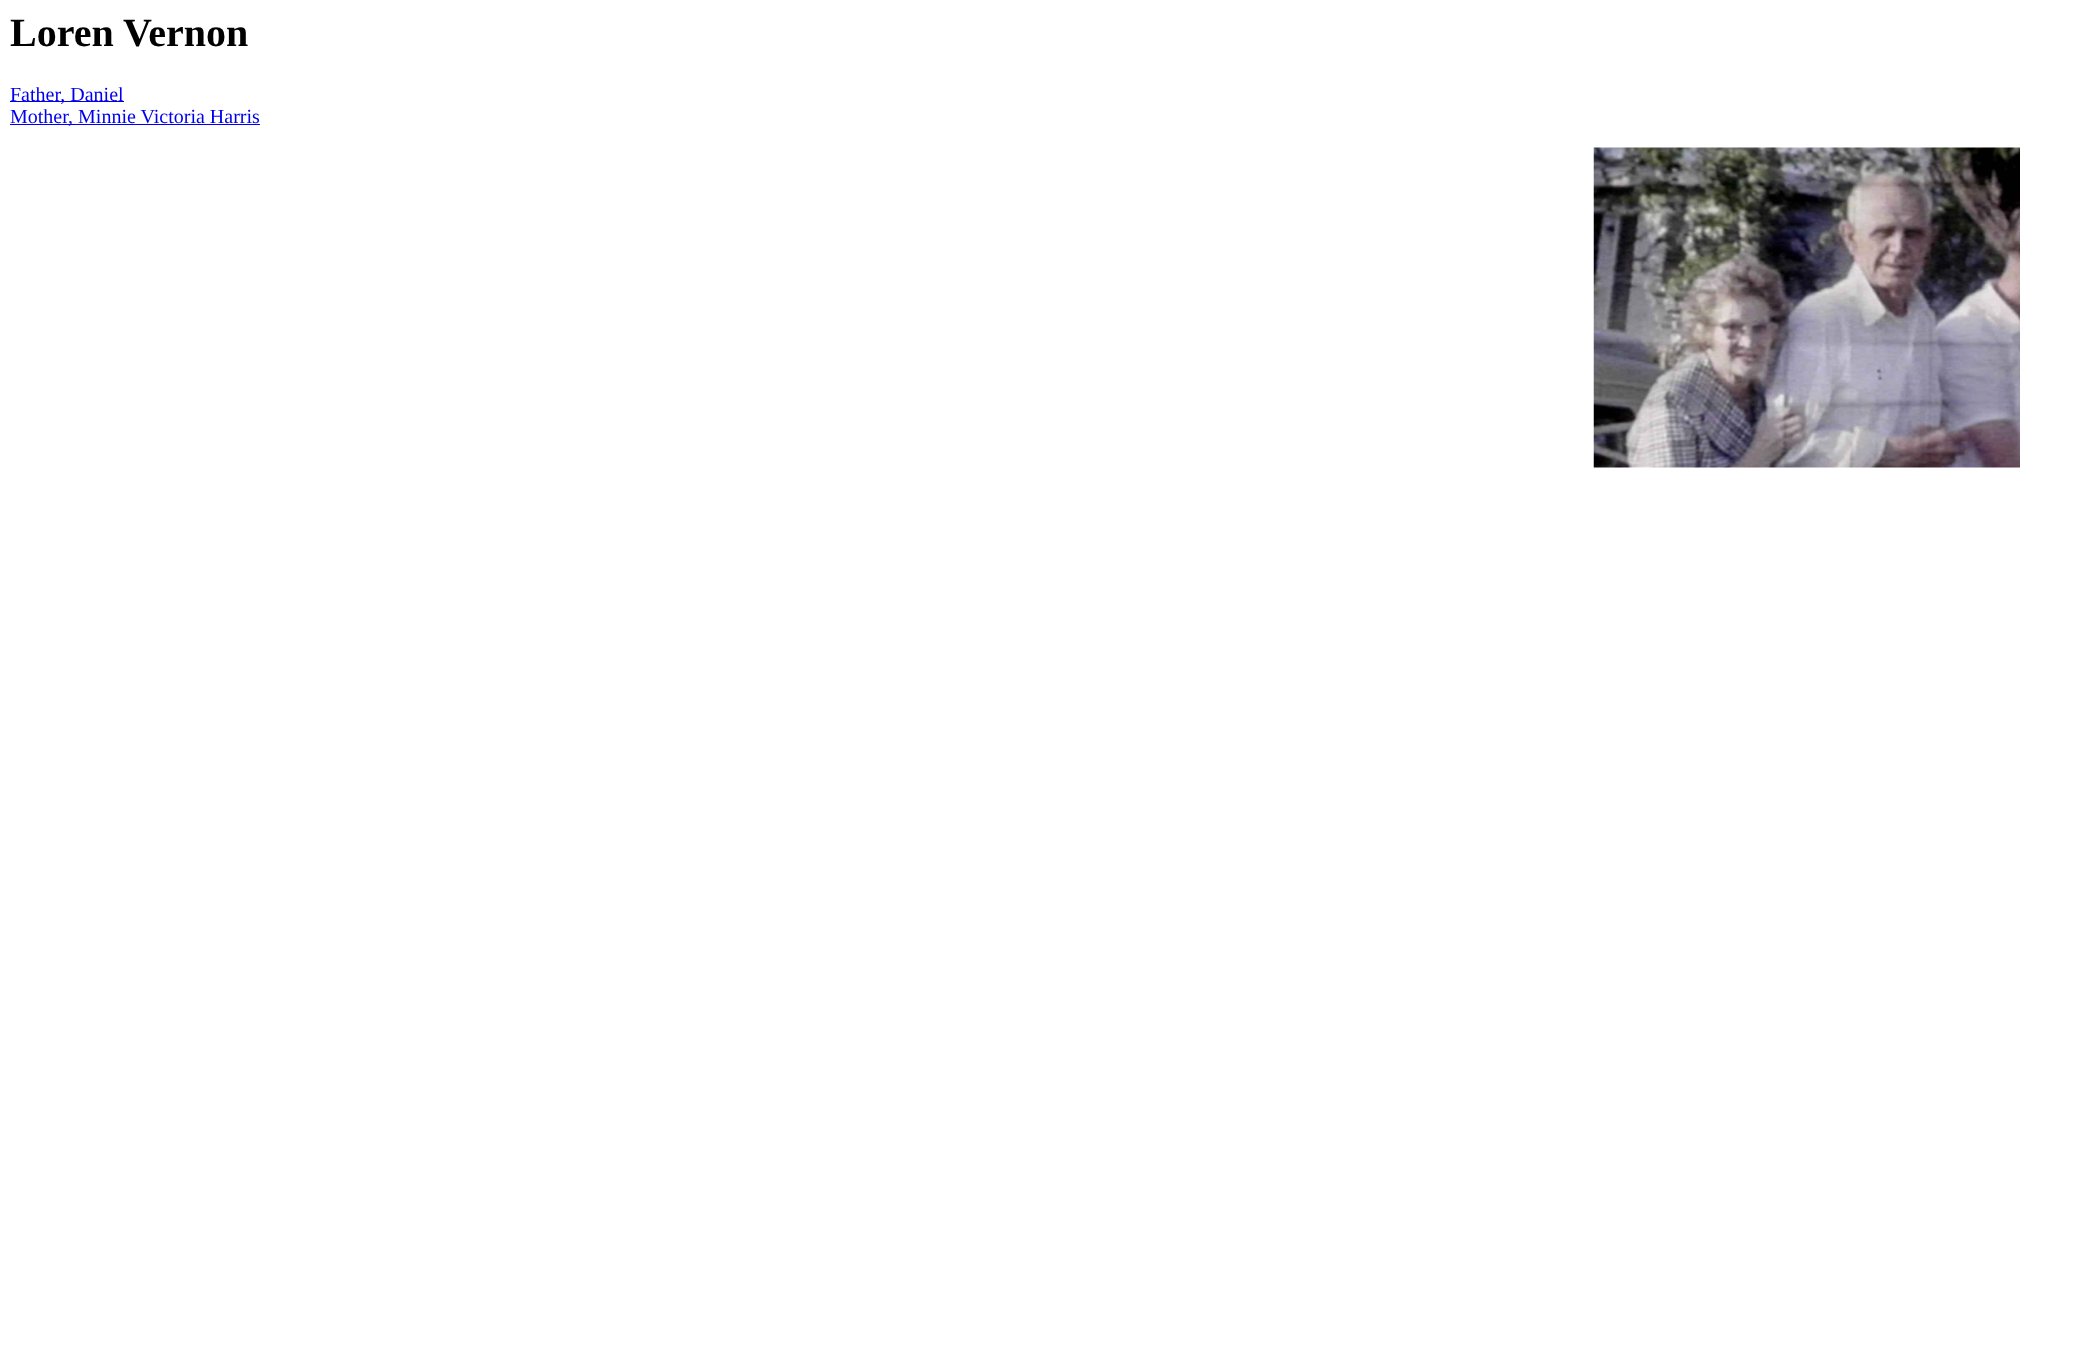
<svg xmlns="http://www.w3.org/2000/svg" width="2080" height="1349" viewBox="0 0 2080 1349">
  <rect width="100%" height="100%" fill="#ffffff"/>
  <text x="10" y="46" font-family="Liberation Serif" font-size="40" font-weight="bold" fill="#000000">Loren Vernon</text>
  <rect x="10" y="101" width="114" height="1" fill="#0000ee"/>
  <text x="10" y="101" font-family="Liberation Serif" font-size="20" fill="#0000ee">Father, Daniel</text>
  <rect x="10" y="124" width="250" height="1" fill="#0000ee"/>
  <text x="10" y="123" font-family="Liberation Serif" font-size="20" fill="#0000ee">Mother, Minnie Victoria Harris</text>
  <image x="1593" y="147" width="427" height="321" href="img1.png"/>
</svg>
